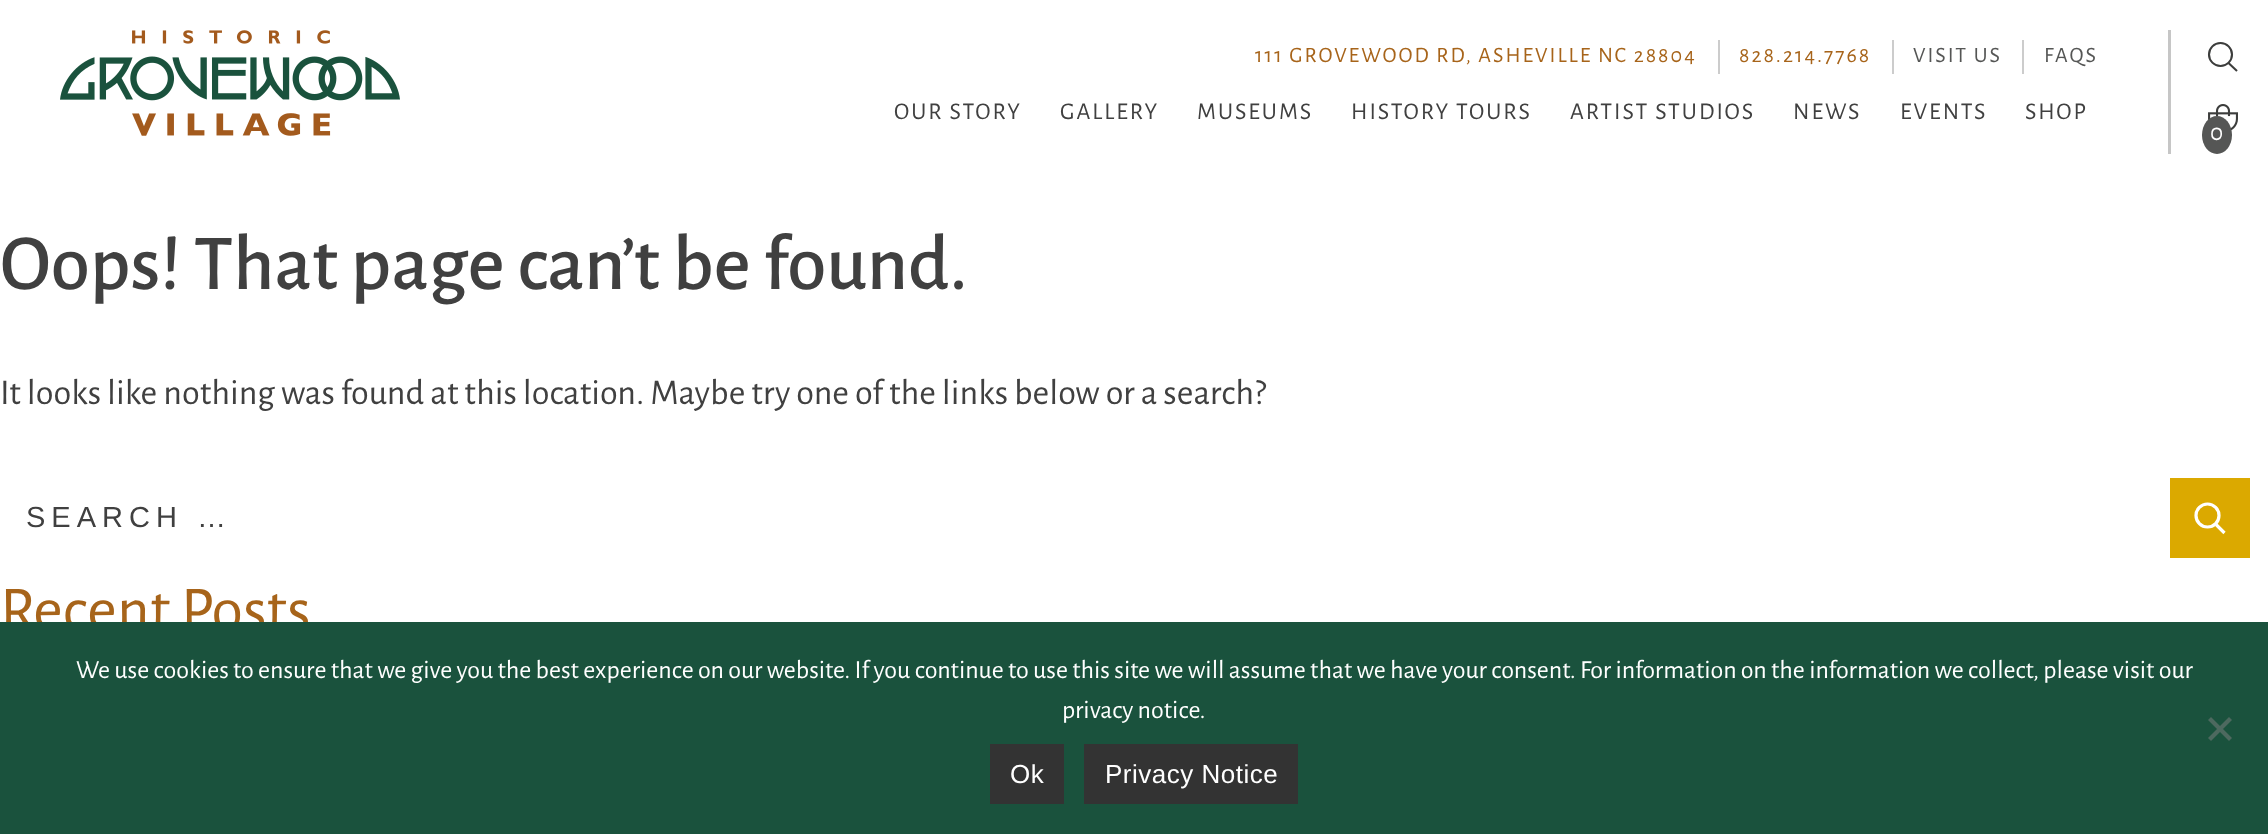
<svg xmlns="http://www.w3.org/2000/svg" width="2268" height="834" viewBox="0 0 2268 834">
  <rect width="100%" height="100%" fill="#ffffff"/>
  <image x="60" y="30" width="340" height="106" href="img1.png"/>
  <text x="1255" y="62" font-family="Alegreya Sans" font-size="22" letter-spacing="2" fill="#a7641a">111 GROVEWOOD RD, ASHEVILLE NC 28804</text>
  <rect x="1718" y="40" width="2" height="34" fill="#cccccc"/>
  <text x="1739" y="62" font-family="Alegreya Sans" font-size="22" letter-spacing="2" fill="#a7641a">828.214.7768</text>
  <rect x="1892" y="40" width="2" height="34" fill="#cccccc"/>
  <text x="1913" y="62" font-family="Alegreya Sans" font-size="22" letter-spacing="2" fill="#555655">VISIT US</text>
  <rect x="2022" y="40" width="2" height="34" fill="#cccccc"/>
  <text x="2044" y="62" font-family="Alegreya Sans" font-size="22" letter-spacing="2" fill="#555655">FAQS</text>
  <text x="894" y="119" font-family="Alegreya Sans" font-size="24" letter-spacing="2" fill="#404040">OUR STORY</text>
  <text x="1060" y="119" font-family="Alegreya Sans" font-size="24" letter-spacing="2" fill="#404040">GALLERY</text>
  <text x="1197" y="119" font-family="Alegreya Sans" font-size="24" letter-spacing="2" fill="#404040">MUSEUMS</text>
  <text x="1351" y="119" font-family="Alegreya Sans" font-size="24" letter-spacing="2" fill="#404040">HISTORY TOURS</text>
  <text x="1570" y="119" font-family="Alegreya Sans" font-size="24" letter-spacing="2" fill="#404040">ARTIST STUDIOS</text>
  <text x="1793" y="119" font-family="Alegreya Sans" font-size="24" letter-spacing="2" fill="#404040">NEWS</text>
  <text x="1900" y="119" font-family="Alegreya Sans" font-size="24" letter-spacing="2" fill="#404040">EVENTS</text>
  <text x="2025" y="119" font-family="Alegreya Sans" font-size="24" letter-spacing="2" fill="#404040">SHOP</text>
  <rect x="2168" y="30" width="3" height="124" fill="#c6c6c6"/>
  <circle cx="2220.5" cy="54.5" r="11.5" fill="none" stroke="#3c3d3c" stroke-width="2.1"/>
  <path d="M2228.5 63L2237 71" fill="none" stroke="#3c3d3c" stroke-width="2.1"/>
  <image x="2208" y="104" width="30" height="27" href="img2.png"/>
  <ellipse cx="2217" cy="135" rx="15" ry="19" fill="#555655"/>
  <text x="2210" y="140" font-family="Alegreya Sans" font-size="25" fill="#ffffff">0</text>
  <text x="0" y="289" font-family="Alegreya Sans" font-size="79.5" font-weight="500" fill="#404040">Oops! That page can’t be found.</text>
  <text x="0" y="404" font-family="Alegreya Sans" font-size="36.15" fill="#404040">It looks like nothing was found at this location. Maybe try one of the links below or a search?</text>
  <text x="26" y="527" font-family="Liberation Sans" font-size="29" letter-spacing="6" fill="#404040">SEARCH …</text>
  <rect x="2170" y="478" width="80" height="80" fill="#dba900"/>
  <circle cx="2207.5" cy="515.5" r="11.5" fill="none" stroke="#ffffff" stroke-width="3.2"/>
  <path d="M2216 524.5L2224.5 533" fill="none" stroke="#ffffff" stroke-width="3.2"/>
  <text x="0" y="630" font-family="Alegreya Sans" font-size="64" fill="#a7641a">Recent Posts</text>
  <rect x="0" y="622" width="2268" height="212" fill="#1a523d"/>
  <text x="76" y="678" font-family="Alegreya Sans" font-size="26" fill="#ffffff">We use cookies to ensure that we give you the best experience on our website. If you continue to use this site we will assume that we have your consent. For information on the information we collect, please visit our</text>
  <text x="1062" y="718" font-family="Alegreya Sans" font-size="26" fill="#ffffff">privacy notice.</text>
  <path d="M2229 717L2232 720L2211 741L2208 738Z" fill="#4d695f"/>
  <path d="M2208 720L2211 717L2232 738L2229 741Z" fill="#4d695f"/>
  <rect x="990" y="744" width="74" height="60" fill="#333333"/>
  <text x="1010" y="783" font-family="Liberation Sans" font-size="26" letter-spacing="0.5" fill="#ffffff">Ok</text>
  <rect x="1084" y="744" width="214" height="60" fill="#333333"/>
  <text x="1105" y="783" font-family="Liberation Sans" font-size="26" letter-spacing="0.5" fill="#ffffff">Privacy Notice</text>
</svg>
